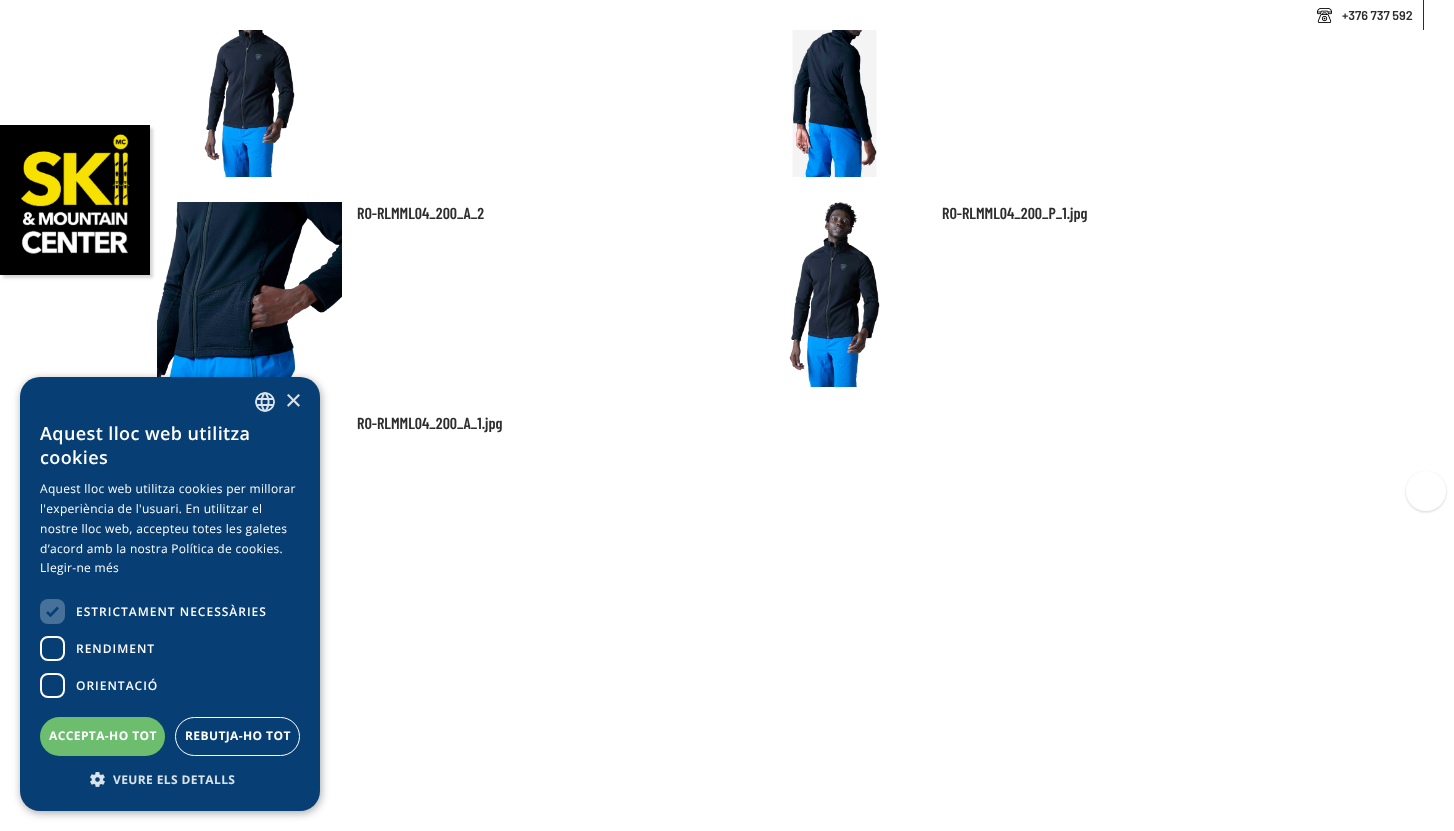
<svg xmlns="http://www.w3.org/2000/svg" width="1454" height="831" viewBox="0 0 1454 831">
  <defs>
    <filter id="blur1" x="-50%" y="-200%" width="200%" height="500%"><feGaussianBlur stdDeviation="1.5"/></filter>
    <clipPath id="clip1"><path d="M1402 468H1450V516H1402ZM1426 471C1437 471 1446 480 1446 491C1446 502 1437 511 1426 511C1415 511 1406 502 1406 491C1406 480 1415 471 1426 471Z" clip-rule="evenodd"/></clipPath>
    <filter id="blur2" x="-50%" y="-200%" width="200%" height="500%"><feGaussianBlur stdDeviation="1"/></filter>
    <filter id="blur3" x="-50%" y="-200%" width="200%" height="500%"><feGaussianBlur stdDeviation="4"/></filter>
  </defs>
  <rect width="100%" height="100%" fill="#ffffff"/>
  <image x="1317" y="8" width="15" height="15" href="img1.png"/>
  <rect x="1423" y="0" width="1" height="30" fill="#2d2d2d"/>
  <text x="1342" y="20" font-family="Barlow" font-size="12.75" font-weight="600" fill="#2d2d2d">+376 737 592</text>
  <image x="157" y="202" width="185" height="185" href="img5.png"/>
  <rect x="3" y="128" width="150" height="150" fill="#000000" fill-opacity="0.16" filter="url(#blur1)"/>
  <rect x="0" y="125" width="150" height="150" fill="#000000"/>
  <image x="21" y="134" width="109" height="120" href="img2.png"/>
  <image x="204" y="30" width="91" height="147" href="img3.png"/>
  <image x="792" y="30" width="85" height="147" href="img4.png"/>
  <text x="357" y="219" font-family="Barlow Condensed" font-size="16" font-weight="600" fill="#2d2d2d">RO-RLMML04_200_A_2</text>
  <image x="789" y="202" width="91" height="185" href="img6.png"/>
  <text x="942" y="219" font-family="Barlow Condensed" font-size="16" font-weight="600" fill="#2d2d2d">RO-RLMML04_200_P_1.jpg</text>
  <text x="357" y="429" font-family="Barlow Condensed" font-size="16" font-weight="600" fill="#2d2d2d">RO-RLMML04_200_A_1.jpg</text>
  <g clip-path="url(#clip1)">
    <rect x="1406" y="472" width="40" height="40" rx="20" fill="#2d2d2d" fill-opacity="0.2" filter="url(#blur2)"/>
  </g>
  <circle cx="1426" cy="491" r="20" fill="#ffffff" fill-opacity="0.4"/>
  <rect x="21" y="379" width="300" height="434" rx="20" fill="#000000" fill-opacity="0.35" filter="url(#blur3)"/>
  <rect x="20" y="377" width="300" height="434" rx="20" fill="#073f75"/>
  <image x="255" y="392" width="20" height="20" href="img7.png"/>
  <text x="285" y="410" font-family="Liberation Sans" font-size="29" fill="#dae2ea">×</text>
  <text x="40" y="440" font-family="Open Sans" font-size="18" font-weight="600" letter-spacing="0.4" fill="#ffffff">Aquest lloc web utilitza</text>
  <text x="40" y="464" font-family="Open Sans" font-size="18" font-weight="600" letter-spacing="0.4" fill="#ffffff">cookies</text>
  <text x="40" y="493" font-family="Open Sans" font-size="12" letter-spacing="0.3" fill="#ffffff">Aquest lloc web utilitza cookies per millorar</text>
  <text x="40" y="513" font-family="Open Sans" font-size="12" letter-spacing="0.3" fill="#ffffff">l'experiència de l'usuari. En utilitzar el</text>
  <text x="40" y="533" font-family="Open Sans" font-size="12" letter-spacing="0.3" fill="#ffffff">nostre lloc web, accepteu totes les galetes</text>
  <text x="40" y="553" font-family="Open Sans" font-size="12" letter-spacing="0.3" fill="#ffffff">d’acord amb la nostra Política de cookies.</text>
  <text x="40" y="572" font-family="Open Sans" font-size="12" letter-spacing="0.3" fill="#ffffff">Llegir-ne més</text>
  <rect x="40" y="599" width="25" height="25" rx="8" fill="#477199"/>
  <path d="M47 612L50.5 615.5L58 607.5" fill="none" stroke="#073f75" stroke-width="2.6"/>
  <text x="76" y="616" font-family="Open Sans" font-size="12" font-weight="600" letter-spacing="1" fill="#ffffff">ESTRICTAMENT NECESSÀRIES</text>
  <rect x="41" y="637" width="23" height="23" rx="7" fill="none" stroke="#ffffff" stroke-width="2"/>
  <text x="76" y="653" font-family="Open Sans" font-size="12" font-weight="600" letter-spacing="1" fill="#ffffff">RENDIMENT</text>
  <rect x="41" y="674" width="23" height="23" rx="7" fill="none" stroke="#ffffff" stroke-width="2"/>
  <text x="76" y="690" font-family="Open Sans" font-size="12" font-weight="600" letter-spacing="1" fill="#ffffff">ORIENTACIÓ</text>
  <rect x="40" y="717" width="125" height="39" rx="19.5" fill="#6cbd6d"/>
  <text x="49" y="740" font-family="Open Sans" font-size="12" font-weight="bold" letter-spacing="0.4" fill="#ffffff">ACCEPTA-HO TOT</text>
  <rect x="175.5" y="717.5" width="124" height="38" rx="19" fill="none" stroke="#ffffff"/>
  <text x="185" y="740" font-family="Open Sans" font-size="12" font-weight="bold" letter-spacing="0.4" fill="#ffffff">REBUTJA-HO TOT</text>
  <image x="90" y="772" width="15" height="15" href="img8.png"/>
  <text x="113" y="784" font-family="Open Sans" font-size="12" font-weight="bold" letter-spacing="0.4" fill="#dae2ea">VEURE ELS DETALLS</text>
</svg>
